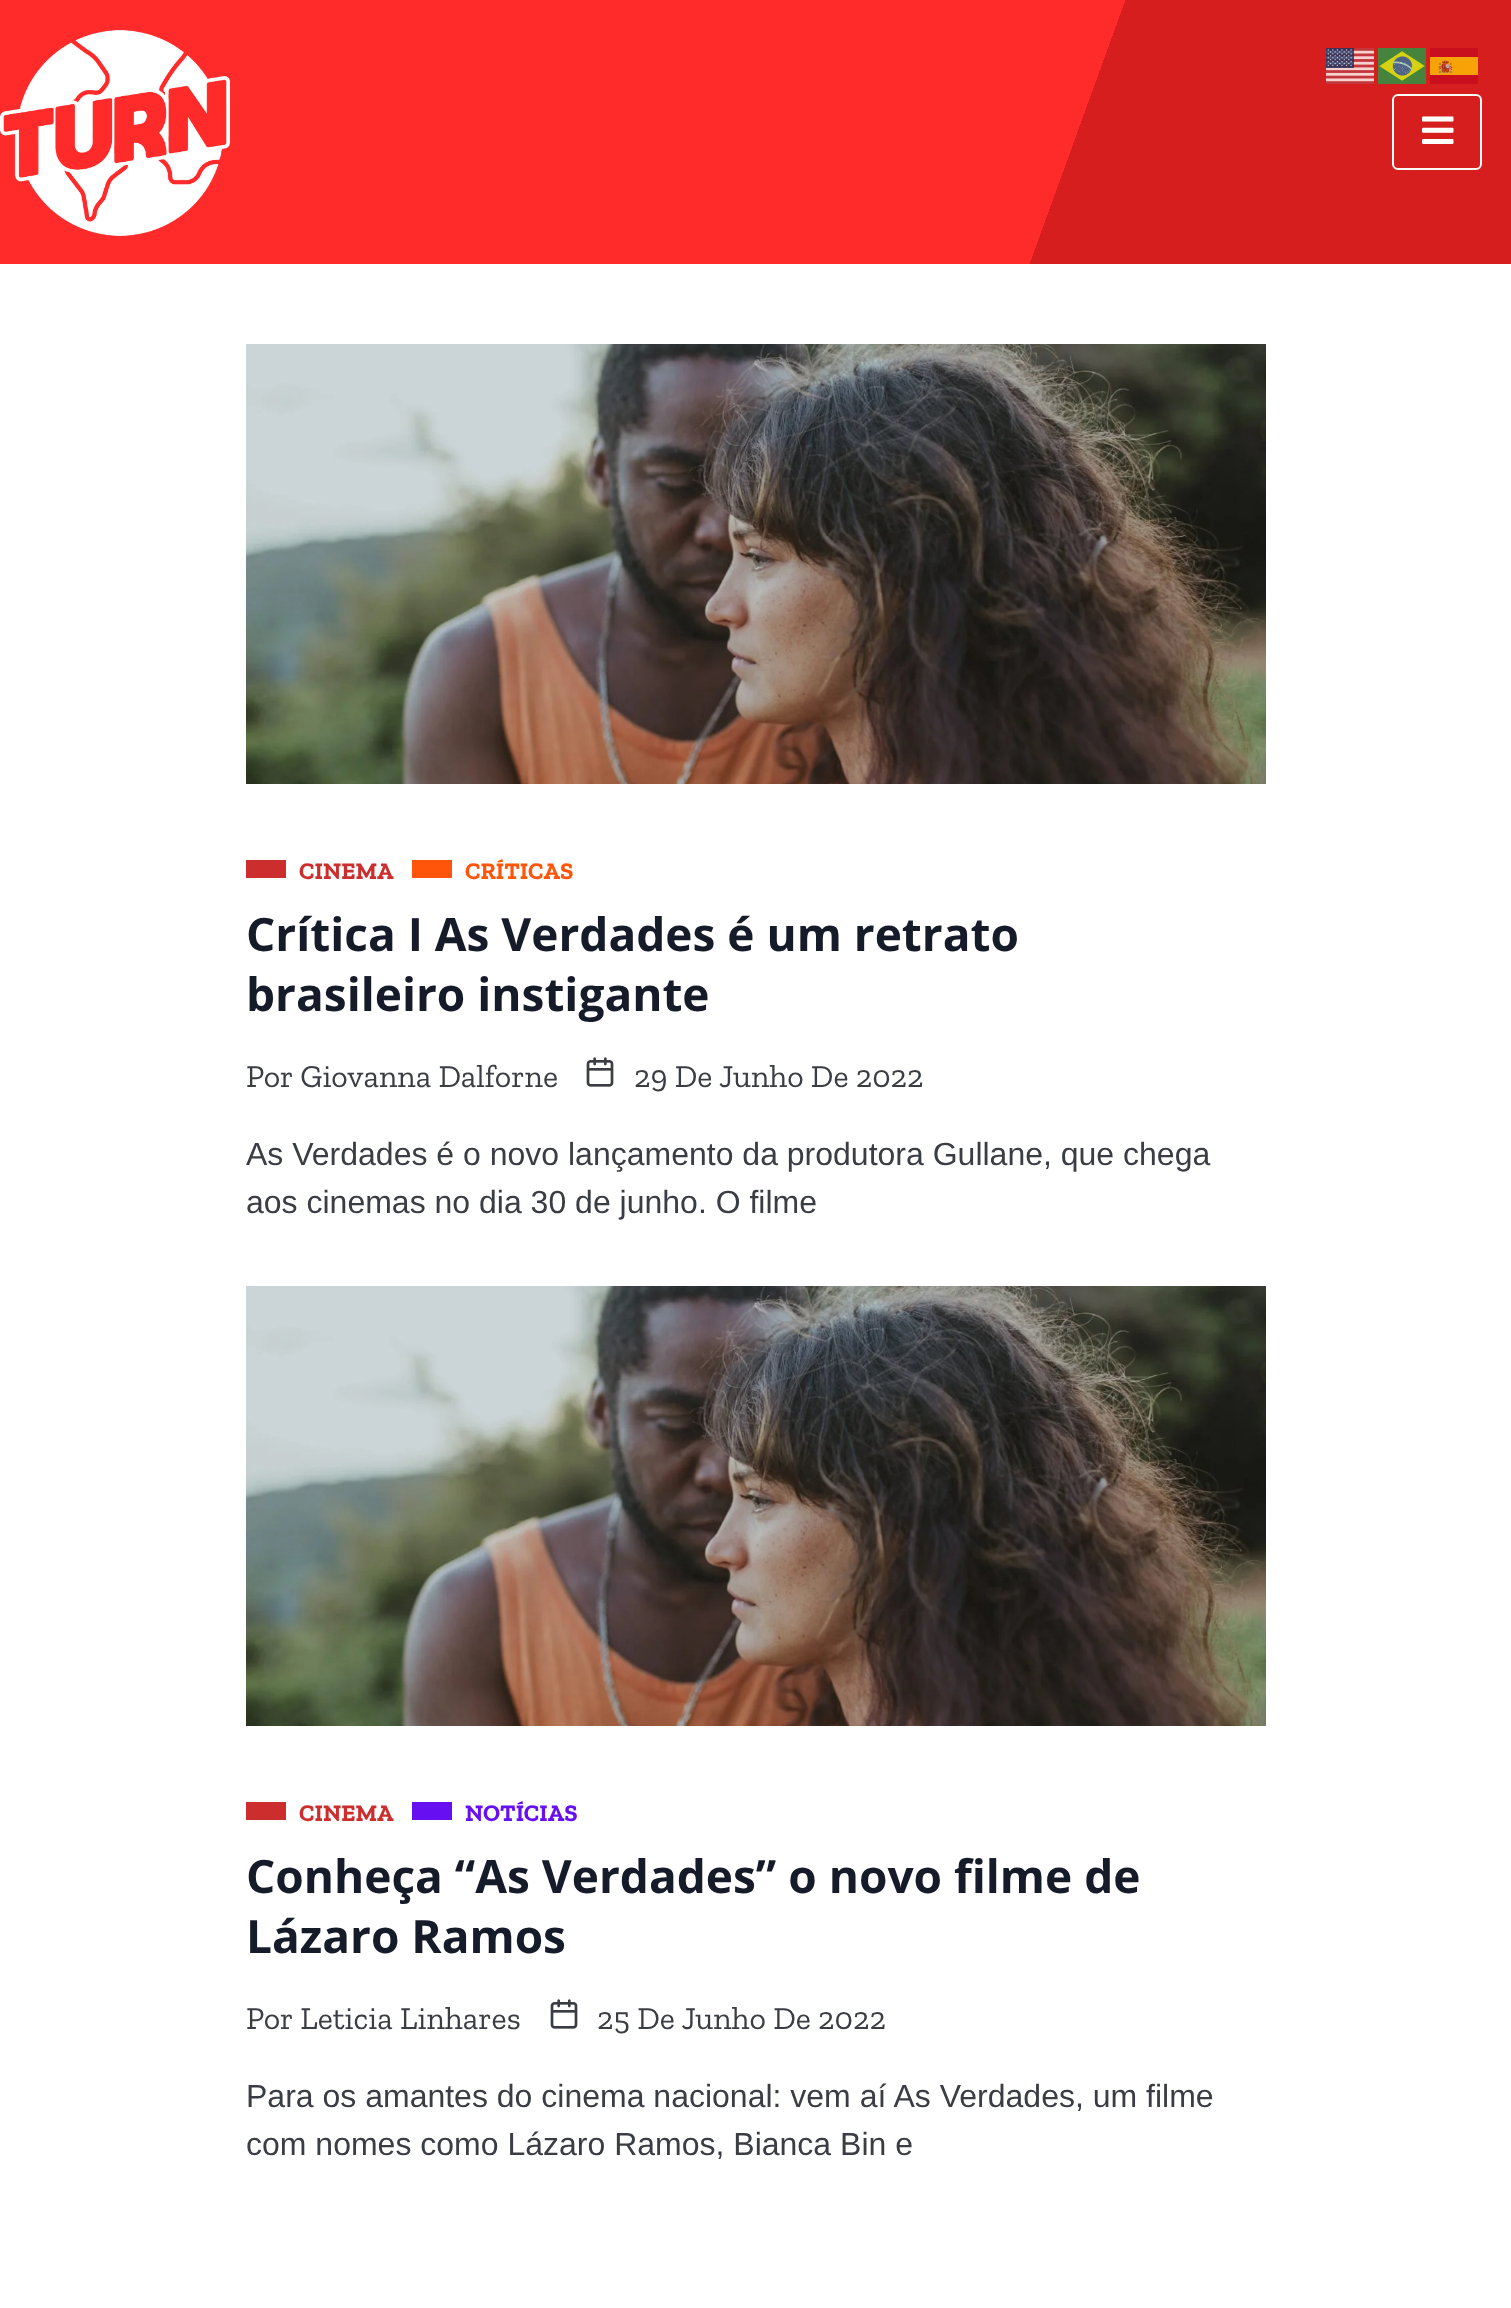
<!DOCTYPE html>
<meta charset="utf-8">
<style>body { margin: 0 } canvas { display: block }</style>
<canvas id="canvas" width="1511" height="2308"></canvas>
<img id="img1" src="img_01.png" hidden>
<img id="img2" src="img_02.png" hidden>
<img id="img3" src="img_03.png" hidden>
<img id="img4" src="img_04.png" hidden>
<img id="img5" src="img_05.png" hidden>
<img id="img6" src="img_06.png" hidden>
<img id="img7" src="img_07.png" hidden>
<script>
window.onload = function () {
	const canvas = document.getElementById("canvas");
	const ctx = canvas.getContext("2d");
	ctx.miterLimit = 4;
	ctx.fontKerning = "normal";
	function txt(s, x, y) {
		ctx.fillText(s, x, y);
	}
	function fill(x, y, w, h) {
		ctx.fillRect(x, y, w, h);
	}
	function img(id, x, y, w, h) {
		ctx.drawImage(document.getElementById(id), x, y, w, h);
	}
	let gradient;

	ctx.fillStyle = "#FFFFFF";
	fill(0, 0, 1511, 2308);
	gradient = ctx.createLinearGradient(46, -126, 1466, 390);
	gradient.addColorStop(0.7, "#FF2A2A");
	gradient.addColorStop(0.7, "#D71E1E");
	ctx.fillStyle = gradient;
	fill(0, 0, 1511, 264);
	img("img1", 0, 30, 230, 206);
	ctx.beginPath();
	ctx.roundRect(1393, 95, 88, 74, 5);
	ctx.strokeStyle = "#FFFFFF";
	ctx.lineWidth = 2;
	ctx.stroke();
	img("img2", 1422, 116, 32, 28);
	img("img3", 1326, 48, 48, 36);
	img("img4", 1378, 48, 48, 36);
	img("img5", 1430, 48, 48, 36);
	img("img6", 246, 344, 1020, 440);
	ctx.fillStyle = "#CC2E2E";
	fill(246, 860, 40, 18);
	ctx.fillStyle = "#FF550A";
	fill(412, 860, 40, 18);
	img("img7", 586, 1057, 28, 30);
	img("img6", 246, 1286, 1020, 440);
	ctx.fillStyle = "#CC2E2E";
	fill(246, 1802, 40, 18);
	ctx.fillStyle = "#6610F2";
	fill(412, 1802, 40, 18);
	img("img7", 550, 1999, 28, 30);
	ctx.font = "bold 24px Zilla Slab";
	ctx.fillStyle = "#CC2E2E";
	txt("CINEMA", 299, 879);
	ctx.fillStyle = "#FF550A";
	txt("CRÍTICAS", 465, 879);
	ctx.font = "bold 46px Open Sans";
	ctx.fillStyle = "#161B2A";
	txt("Crítica I As Verdades é um retrato", 246, 951);
	txt("brasileiro instigante", 246, 1011);
	ctx.font = "32px Zilla Slab";
	ctx.fillStyle = "#3A3D43";
	txt("Por Giovanna Dalforne", 246, 1087);
	txt("29 De Junho De 2022", 634, 1087);
	ctx.font = "32px Liberation Sans";
	txt("As Verdades é o novo lançamento da produtora Gullane, que chega", 246, 1165);
	txt("aos cinemas no dia 30 de junho. O filme", 246, 1213);
	ctx.font = "bold 24px Zilla Slab";
	ctx.fillStyle = "#CC2E2E";
	txt("CINEMA", 299, 1821);
	ctx.fillStyle = "#6610F2";
	txt("NOTÍCIAS", 465, 1821);
	ctx.font = "bold 46px Open Sans";
	ctx.fillStyle = "#161B2A";
	txt("Conheça “As Verdades” o novo filme de", 246, 1893);
	txt("Lázaro Ramos", 246, 1953);
	ctx.font = "32px Zilla Slab";
	ctx.fillStyle = "#3A3D43";
	txt("Por Leticia Linhares", 246, 2029);
	txt("25 De Junho De 2022", 597, 2029);
	ctx.font = "32px Liberation Sans";
	txt("Para os amantes do cinema nacional: vem aí As Verdades, um filme", 246, 2107);
	txt("com nomes como Lázaro Ramos, Bianca Bin e", 246, 2155);
};
</script>
